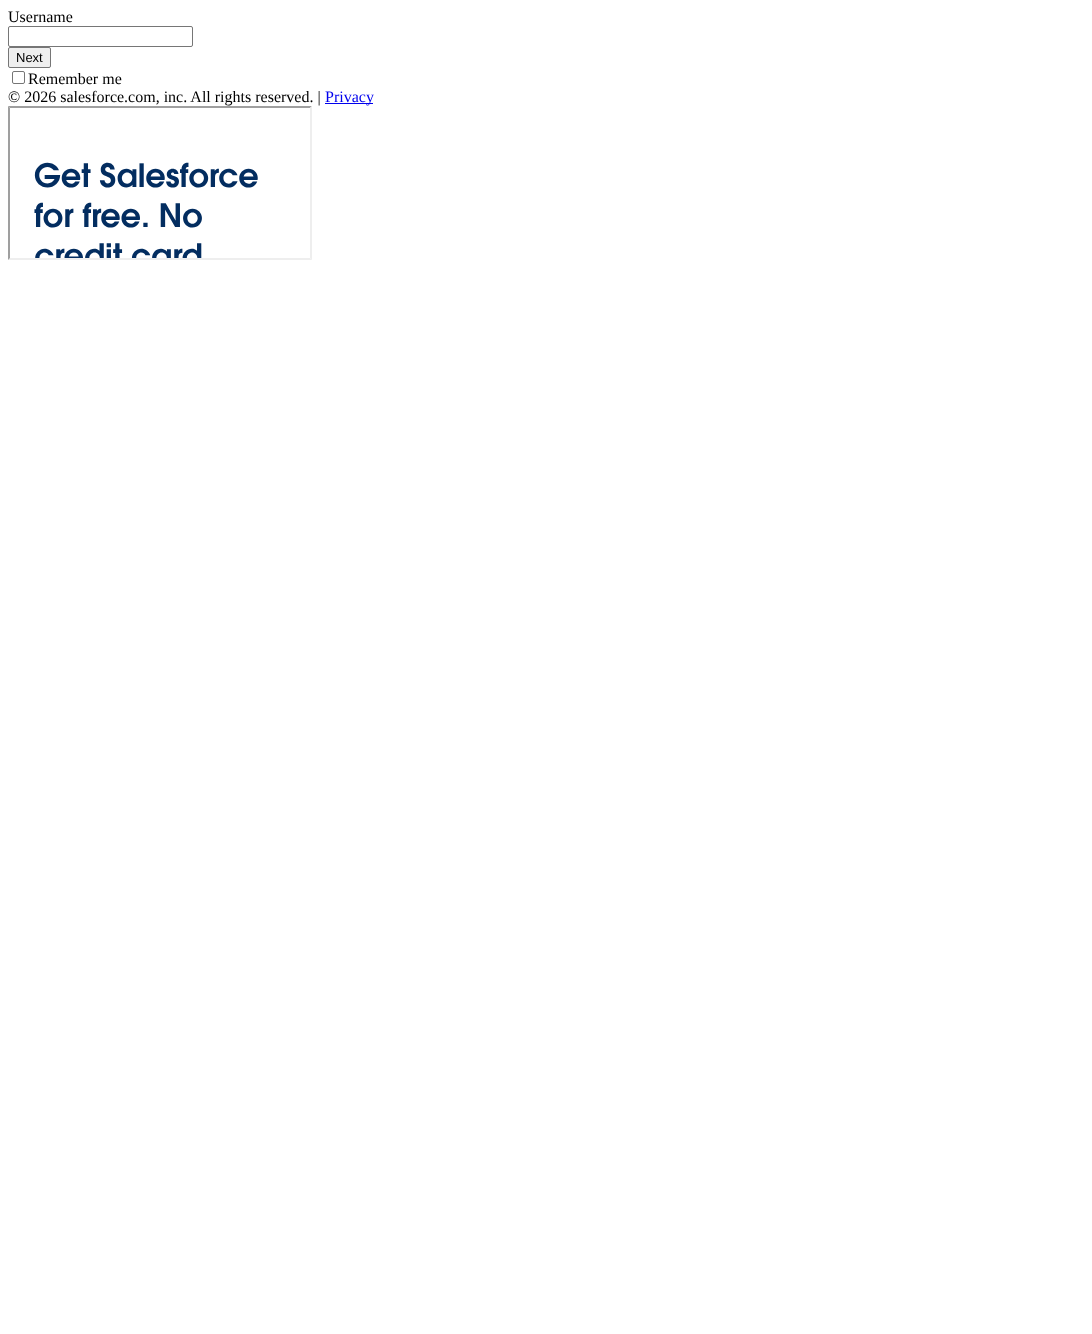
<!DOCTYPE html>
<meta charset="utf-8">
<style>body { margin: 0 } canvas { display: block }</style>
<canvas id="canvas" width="1092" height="1334"></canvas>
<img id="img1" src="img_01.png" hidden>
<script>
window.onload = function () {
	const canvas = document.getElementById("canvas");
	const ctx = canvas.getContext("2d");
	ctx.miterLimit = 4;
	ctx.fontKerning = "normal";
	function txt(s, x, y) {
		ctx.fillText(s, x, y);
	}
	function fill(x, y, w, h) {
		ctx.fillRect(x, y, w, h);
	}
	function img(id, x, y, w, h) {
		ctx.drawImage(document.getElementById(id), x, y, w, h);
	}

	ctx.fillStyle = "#FFFFFF";
	fill(0, 0, 1092, 1334);
	ctx.beginPath();
	ctx.roundRect(8.5, 26.5, 184, 20, 1.5);
	ctx.strokeStyle = "#767676";
	ctx.stroke();
	ctx.fillStyle = "#EFEFEF";
	ctx.beginPath();
	ctx.roundRect(8.5, 47.5, 42, 20, 1.5);
	ctx.fill();
	ctx.stroke();
	ctx.beginPath();
	ctx.roundRect(12.5, 71.5, 12, 12, 1.5);
	ctx.stroke();
	ctx.fillStyle = "#0000EE";
	fill(325, 103, 48, 1);
	ctx.fillStyle = "#9F9F9F";
	ctx.beginPath();
	ctx.moveTo(8, 106);
	ctx.lineTo(312, 106);
	ctx.lineTo(310, 108);
	ctx.lineTo(10, 108);
	ctx.closePath();
	ctx.fill();
	ctx.fillStyle = "#EEEEEE";
	ctx.beginPath();
	ctx.moveTo(312, 106);
	ctx.lineTo(312, 260);
	ctx.lineTo(310, 258);
	ctx.lineTo(310, 108);
	ctx.closePath();
	ctx.fill();
	ctx.beginPath();
	ctx.moveTo(312, 260);
	ctx.lineTo(8, 260);
	ctx.lineTo(10, 258);
	ctx.lineTo(310, 258);
	ctx.closePath();
	ctx.fill();
	ctx.fillStyle = "#9F9F9F";
	ctx.beginPath();
	ctx.moveTo(8, 260);
	ctx.lineTo(8, 106);
	ctx.lineTo(10, 108);
	ctx.lineTo(10, 258);
	ctx.closePath();
	ctx.fill();
	img("img1", 34, 162, 224, 96);
	ctx.font = "16px Liberation Serif";
	ctx.fillStyle = "#000000";
	txt("Username", 8, 22);
	ctx.font = "13px Liberation Sans";
	txt("Next", 16, 62);
	ctx.font = "16px Liberation Serif";
	txt("Remember me", 28, 84);
	txt("© 2026 salesforce.com, inc. All rights reserved. |", 8, 102);
	ctx.fillStyle = "#0000EE";
	txt("Privacy", 325, 102);
};
</script>
